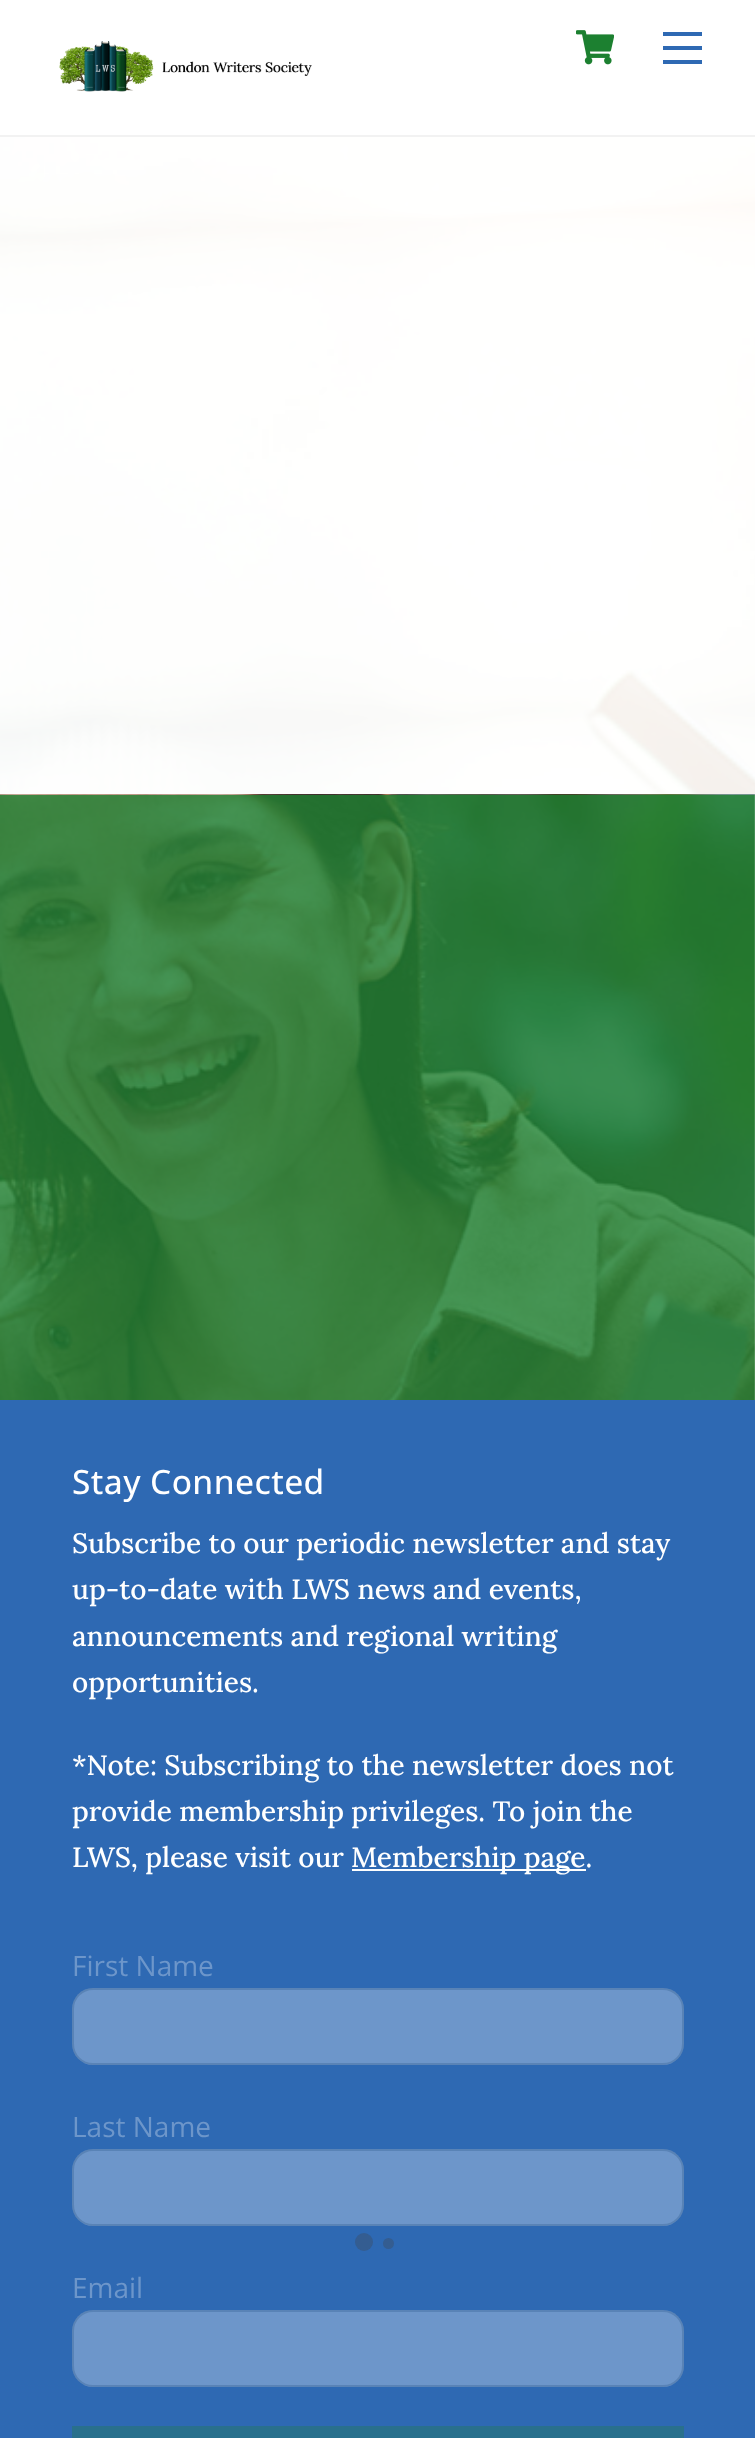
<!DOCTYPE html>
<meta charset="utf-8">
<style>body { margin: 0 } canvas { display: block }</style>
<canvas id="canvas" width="755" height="2438"></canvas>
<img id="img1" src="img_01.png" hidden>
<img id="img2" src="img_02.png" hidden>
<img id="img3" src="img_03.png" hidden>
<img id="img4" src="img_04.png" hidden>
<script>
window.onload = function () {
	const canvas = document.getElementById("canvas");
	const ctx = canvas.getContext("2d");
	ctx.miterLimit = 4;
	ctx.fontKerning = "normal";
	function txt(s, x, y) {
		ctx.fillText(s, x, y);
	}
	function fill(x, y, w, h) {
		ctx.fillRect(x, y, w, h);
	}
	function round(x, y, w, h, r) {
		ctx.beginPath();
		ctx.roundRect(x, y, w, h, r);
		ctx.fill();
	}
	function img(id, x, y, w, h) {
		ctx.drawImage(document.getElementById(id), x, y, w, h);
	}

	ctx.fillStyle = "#FFFFFF";
	fill(0, 0, 755, 2438);
	ctx.fillStyle = "#F2F2F2";
	fill(0, 135, 755, 2);
	img("img1", 59, 41, 253, 51);
	img("img2", 576, 30, 38, 35);
	ctx.fillStyle = "#2E69B3";
	fill(663, 60, 39, 4);
	fill(663, 32, 39, 4);
	fill(663, 46, 39, 4);
	img("img3", 0, 137, 755, 658);
	img("img4", 0, 794, 755, 606);
	fill(0, 1400, 755, 1038);
	ctx.fillStyle = "#FFFFFF";
	fill(352, 1869, 234, 2);
	ctx.fillStyle = "#6D96CA";
	round(72, 1988, 612, 77, 21);
	ctx.beginPath();
	ctx.roundRect(73, 1989, 610, 75, 20);
	ctx.strokeStyle = "rgba(32, 74, 125, 0.25)";
	ctx.lineWidth = 2;
	ctx.stroke();
	round(72, 2149, 612, 77, 21);
	ctx.beginPath();
	ctx.roundRect(73, 2150, 610, 75, 20);
	ctx.stroke();
	round(72, 2310, 612, 77, 21);
	ctx.beginPath();
	ctx.roundRect(73, 2311, 610, 75, 20);
	ctx.stroke();
	ctx.fillStyle = "#29708C";
	fill(72, 2426, 612, 12);
	ctx.fillStyle = "#345D91";
	ctx.beginPath();
	ctx.arc(364, 2242, 9, 0, Math.PI * 2);
	ctx.fill();
	ctx.beginPath();
	ctx.arc(388.5, 2243.5, 5.5, 0, Math.PI * 2);
	ctx.fill();
	ctx.letterSpacing = "0.4px";
	ctx.font = "500 33.5px Open Sans";
	ctx.fillStyle = "#FFFFFF";
	txt("Stay Connected", 72, 1494);
	ctx.letterSpacing = "0px";
	ctx.font = "500 28px Lora";
	txt("Subscribe to our periodic newsletter and stay", 72, 1553);
	txt("up-to-date with LWS news and events,", 72, 1599);
	txt("announcements and regional writing", 72, 1646);
	txt("opportunities.", 72, 1692);
	txt("*Note: Subscribing to the newsletter does not", 72, 1775);
	txt("provide membership privileges. To join the", 72, 1821);
	txt("LWS, please visit our", 72, 1867);
	txt("Membership page.", 351, 1867);
	ctx.font = "28px Open Sans";
	ctx.fillStyle = "#6D96CA";
	txt("First Name", 72, 1976);
	txt("Last Name", 72, 2137);
	txt("Email", 72, 2298);
};
</script>
